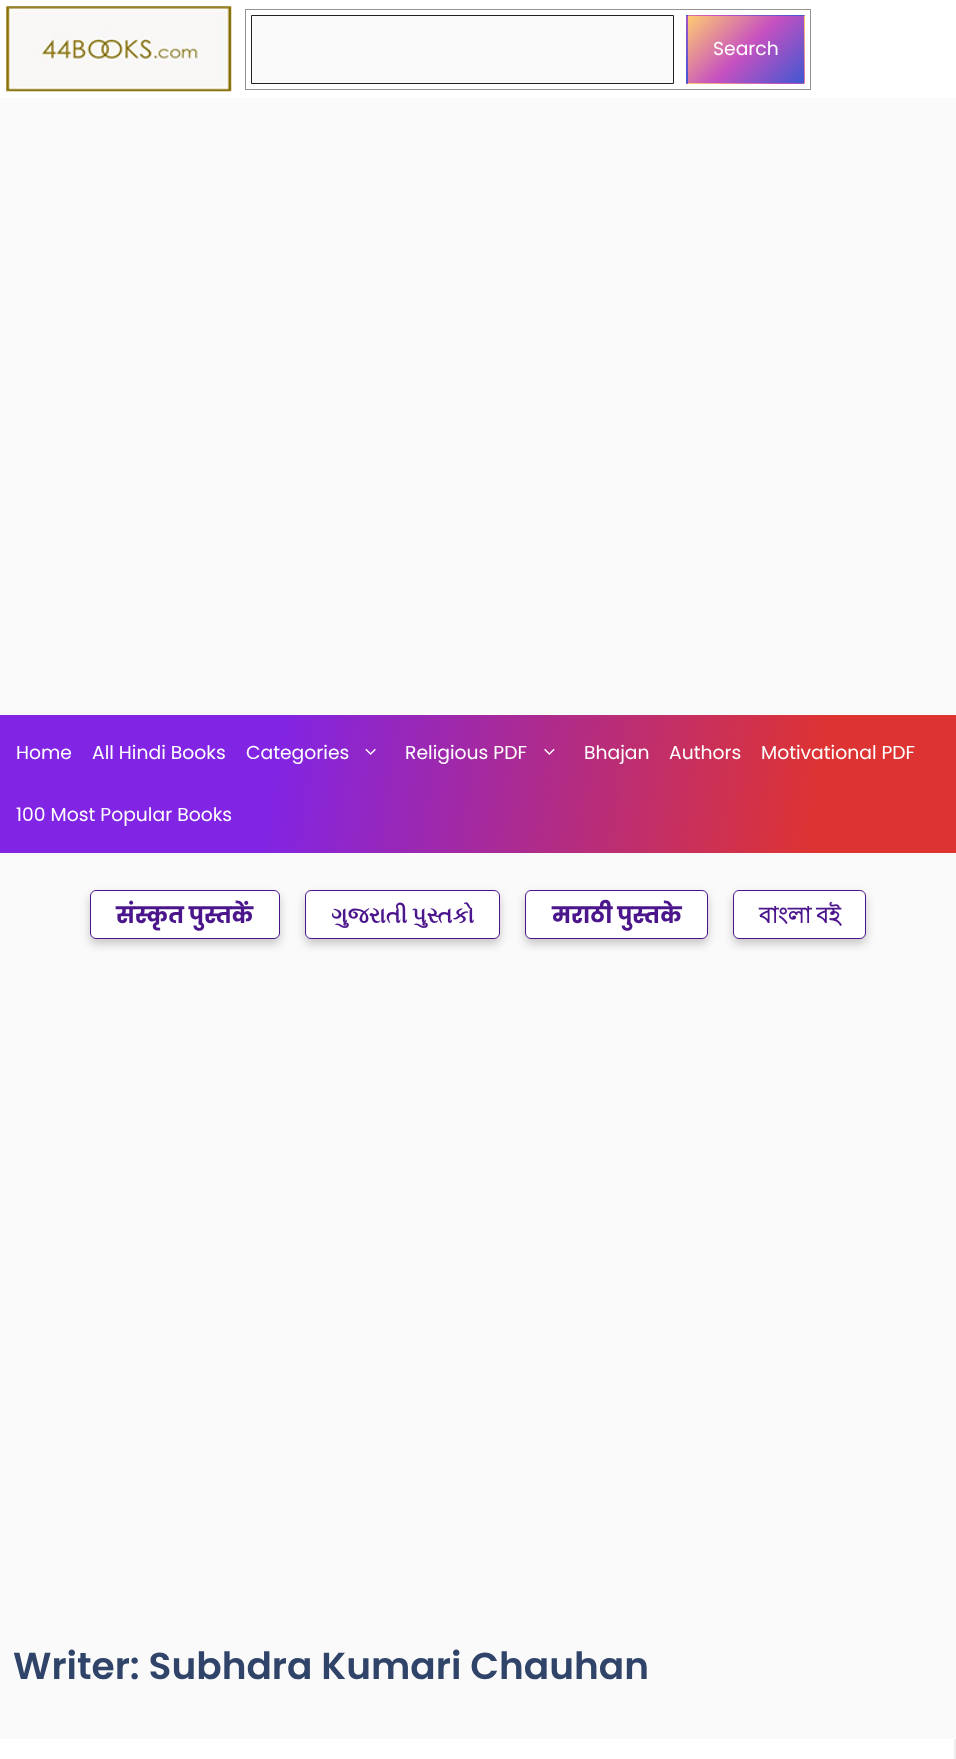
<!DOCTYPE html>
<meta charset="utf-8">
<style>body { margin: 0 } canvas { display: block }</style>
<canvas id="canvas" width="956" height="1759"></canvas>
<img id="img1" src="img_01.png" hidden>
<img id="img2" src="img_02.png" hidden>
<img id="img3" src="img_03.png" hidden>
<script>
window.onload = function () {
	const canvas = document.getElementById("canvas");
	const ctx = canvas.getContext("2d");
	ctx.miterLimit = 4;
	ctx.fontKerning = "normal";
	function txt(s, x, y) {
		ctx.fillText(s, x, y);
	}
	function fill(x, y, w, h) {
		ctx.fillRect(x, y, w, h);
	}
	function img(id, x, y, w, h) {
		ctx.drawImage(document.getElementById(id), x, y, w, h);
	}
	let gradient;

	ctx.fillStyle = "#FAFAFA";
	fill(0, 0, 956, 1759);
	ctx.fillStyle = "#FFFFFF";
	fill(0, 0, 956, 98);
	img("img1", 6, 6, 226, 86);
	ctx.strokeStyle = "#949494";
	ctx.strokeRect(245.5, 9.5, 565, 80);
	ctx.fillStyle = "#FAFAFA";
	ctx.beginPath();
	ctx.rect(251.5, 15.5, 422, 68);
	ctx.fill();
	ctx.strokeStyle = "#212121";
	ctx.stroke();
	gradient = ctx.createLinearGradient(584, -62, 675, 29);
	gradient.addColorStop(0, "#FFCB70");
	gradient.addColorStop(0.5, "#C751C0");
	gradient.addColorStop(1, "#4158D0");
	ctx.fillStyle = gradient;
	fill(686, 15, 2, 1);
	gradient = ctx.createLinearGradient(700, -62, 791, 29);
	gradient.addColorStop(0, "#FFCB70");
	gradient.addColorStop(0.5, "#C751C0");
	gradient.addColorStop(1, "#4158D0");
	ctx.fillStyle = gradient;
	fill(688, 15, 116, 1);
	gradient = ctx.createLinearGradient(816, -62, 908, 29);
	gradient.addColorStop(0, "#FFCB70");
	gradient.addColorStop(0.5, "#C751C0");
	gradient.addColorStop(1, "#4158D0");
	ctx.fillStyle = gradient;
	fill(804, 15, 1, 1);
	gradient = ctx.createLinearGradient(584, 3.8, 675, 95);
	gradient.addColorStop(0, "#FFCB70");
	gradient.addColorStop(0.5, "#C751C0");
	gradient.addColorStop(1, "#4158D0");
	ctx.fillStyle = gradient;
	fill(686, 16, 2, 67);
	gradient = ctx.createLinearGradient(700, 3.8, 791, 95);
	gradient.addColorStop(0, "#FFCB70");
	gradient.addColorStop(0.5, "#C751C0");
	gradient.addColorStop(1, "#4158D0");
	ctx.fillStyle = gradient;
	fill(688, 16, 116, 67);
	gradient = ctx.createLinearGradient(816, 3.8, 908, 95);
	gradient.addColorStop(0, "#FFCB70");
	gradient.addColorStop(0.5, "#C751C0");
	gradient.addColorStop(1, "#4158D0");
	ctx.fillStyle = gradient;
	fill(804, 16, 1, 67);
	gradient = ctx.createLinearGradient(584, 70, 675, 161);
	gradient.addColorStop(0, "#FFCB70");
	gradient.addColorStop(0.5, "#C751C0");
	gradient.addColorStop(1, "#4158D0");
	ctx.fillStyle = gradient;
	fill(686, 83, 2, 1);
	gradient = ctx.createLinearGradient(700, 70, 791, 161);
	gradient.addColorStop(0, "#FFCB70");
	gradient.addColorStop(0.5, "#C751C0");
	gradient.addColorStop(1, "#4158D0");
	ctx.fillStyle = gradient;
	fill(688, 83, 116, 1);
	gradient = ctx.createLinearGradient(816, 70, 908, 161);
	gradient.addColorStop(0, "#FFCB70");
	gradient.addColorStop(0.5, "#C751C0");
	gradient.addColorStop(1, "#4158D0");
	ctx.fillStyle = gradient;
	fill(804, 83, 1, 1);
	gradient = ctx.createLinearGradient(956, 851, -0.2, 717);
	gradient.addColorStop(0.15, "#DD3333");
	gradient.addColorStop(0.71, "#8224E3");
	ctx.fillStyle = gradient;
	fill(0, 715, 956, 138);
	img("img2", 365, 748, 11, 7);
	img("img3", 544, 748, 11, 7);
	ctx.fillStyle = "rgba(0, 0, 0, 0.2)";
	ctx.filter = "blur(5px)";
	ctx.beginPath();
	ctx.roundRect(90, 895, 190, 49, 6);
	ctx.fill();
	ctx.filter = "none";
	ctx.fillStyle = "#FFFFFF";
	ctx.beginPath();
	ctx.roundRect(90.5, 890.5, 189, 48, 5.5);
	ctx.fill();
	ctx.strokeStyle = "#4B158C";
	ctx.stroke();
	ctx.fillStyle = "rgba(0, 0, 0, 0.2)";
	ctx.filter = "blur(5px)";
	ctx.beginPath();
	ctx.roundRect(305, 895, 195, 49, 6);
	ctx.fill();
	ctx.filter = "none";
	ctx.fillStyle = "#FFFFFF";
	ctx.beginPath();
	ctx.roundRect(305.5, 890.5, 194, 48, 5.5);
	ctx.fill();
	ctx.stroke();
	ctx.fillStyle = "rgba(0, 0, 0, 0.2)";
	ctx.filter = "blur(5px)";
	ctx.beginPath();
	ctx.roundRect(525, 895, 183, 49, 6);
	ctx.fill();
	ctx.filter = "none";
	ctx.fillStyle = "#FFFFFF";
	ctx.beginPath();
	ctx.roundRect(525.5, 890.5, 182, 48, 5.5);
	ctx.fill();
	ctx.stroke();
	ctx.fillStyle = "rgba(0, 0, 0, 0.2)";
	ctx.filter = "blur(5px)";
	ctx.beginPath();
	ctx.roundRect(733, 895, 133, 49, 6);
	ctx.fill();
	ctx.filter = "none";
	ctx.fillStyle = "#FFFFFF";
	ctx.beginPath();
	ctx.roundRect(733.5, 890.5, 132, 48, 5.5);
	ctx.fill();
	ctx.stroke();
	fill(0, 1739, 954, 20);
	ctx.fillStyle = "#EDEDED";
	ctx.beginPath();
	ctx.moveTo(956, 1739);
	ctx.lineTo(956, 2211);
	ctx.lineTo(954, 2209);
	ctx.lineTo(954, 1739);
	ctx.closePath();
	ctx.fill();
	ctx.font = "18.75px Poppins";
	ctx.fillStyle = "#FFFFFF";
	txt("Search", 713, 55);
	txt("Home", 16, 759);
	txt("All Hindi Books", 92, 759);
	txt("Categories", 246, 759);
	txt("Religious PDF", 405, 759);
	txt("Bhajan", 584, 759);
	txt("Authors", 669, 759);
	txt("Motivational PDF", 761, 759);
	txt("100 Most Popular Books", 16, 821);
	ctx.font = "bold 22.5px Poppins";
	ctx.fillStyle = "#4B158C";
	txt("संस्कृत पुस्तकें", 116, 923);
	ctx.wordSpacing = "-1px";
	ctx.font = "bold 22.5px FreeSerif";
	txt("ગુજરાતી પુસ્તકો", 331, 923);
	ctx.wordSpacing = "0px";
	ctx.font = "bold 22.5px Poppins";
	txt("मराठी पुस्तके", 552, 923);
	ctx.wordSpacing = "-1px";
	ctx.font = "bold 22.5px Lohit Bengali";
	txt("বাংলা বই", 759, 923);
	ctx.wordSpacing = "0px";
	ctx.font = "600 37.5px Poppins";
	ctx.fillStyle = "#2F4468";
	txt("Writer: Subhdra Kumari Chauhan", 13, 1679);
};
</script>
